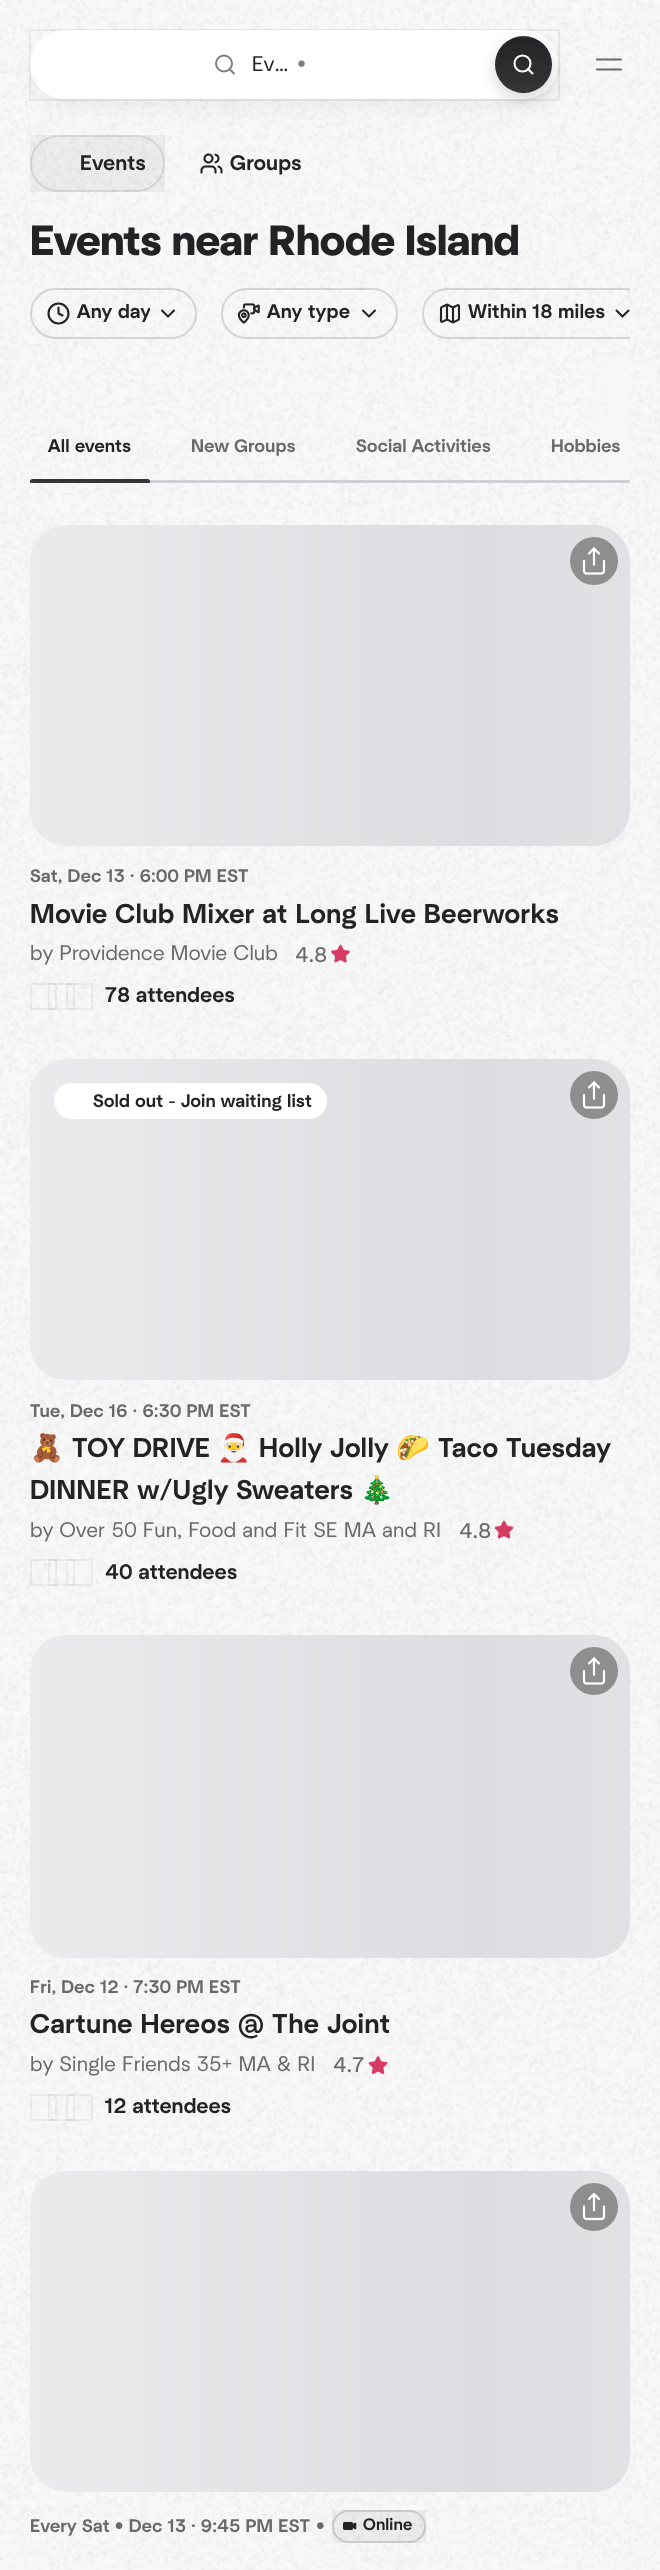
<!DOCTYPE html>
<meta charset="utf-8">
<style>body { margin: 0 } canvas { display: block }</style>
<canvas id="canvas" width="660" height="2570"></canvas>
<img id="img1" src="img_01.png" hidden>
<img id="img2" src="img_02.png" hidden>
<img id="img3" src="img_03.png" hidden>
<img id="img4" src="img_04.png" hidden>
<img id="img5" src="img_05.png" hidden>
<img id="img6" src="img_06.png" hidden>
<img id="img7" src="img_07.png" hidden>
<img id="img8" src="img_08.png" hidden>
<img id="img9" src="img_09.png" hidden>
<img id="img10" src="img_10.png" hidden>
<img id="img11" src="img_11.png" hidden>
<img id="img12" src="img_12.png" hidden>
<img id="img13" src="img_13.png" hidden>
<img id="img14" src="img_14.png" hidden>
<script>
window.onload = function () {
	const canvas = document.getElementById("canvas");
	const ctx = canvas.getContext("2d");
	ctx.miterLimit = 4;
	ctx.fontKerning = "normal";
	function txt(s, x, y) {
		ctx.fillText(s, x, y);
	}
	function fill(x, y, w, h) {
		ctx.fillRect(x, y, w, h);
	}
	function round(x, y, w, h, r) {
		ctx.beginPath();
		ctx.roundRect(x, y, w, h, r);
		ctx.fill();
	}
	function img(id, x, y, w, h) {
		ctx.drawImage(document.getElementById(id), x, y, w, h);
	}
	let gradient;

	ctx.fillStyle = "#FFFFFF";
	fill(0, 0, 660, 2570);
	img("img1", 0, 129, 660, 2441);
	img("img2", 0, 0, 660, 129);
	fill(0, 0, 2, 1);
	ctx.strokeStyle = "rgba(0, 0, 16, 0.06)";
	ctx.lineWidth = 2;
	ctx.strokeRect(30, 30, 529, 70);
	img("img3", 30, 129, 600, 234);
	ctx.fillStyle = "rgba(18, 18, 21, 0.05)";
	fill(30, 135, 135, 57);
	ctx.beginPath();
	ctx.roundRect(31, 136, 133, 55, 27.5);
	ctx.strokeStyle = "rgba(18, 18, 21, 0.1)";
	ctx.stroke();
	ctx.fillStyle = "rgba(0, 0, 16, 0.06)";
	ctx.filter = "blur(12px)";
	ctx.beginPath();
	ctx.roundRect(36, 48, 516, 57, 28.5);
	ctx.fill();
	ctx.filter = "none";
	ctx.fillStyle = "#FFFFFF";
	round(30, 30, 528, 69, 34.5);
	ctx.beginPath();
	ctx.moveTo(234, 73.5);
	ctx.lineTo(229.5, 69);
	ctx.strokeStyle = "#7D7D82";
	ctx.lineCap = "round";
	ctx.lineJoin = "round";
	ctx.stroke();
	ctx.beginPath();
	ctx.arc(224, 63.5, 8, 0, Math.PI * 2);
	ctx.stroke();
	ctx.fillStyle = "rgba(0, 0, 16, 0.16)";
	ctx.filter = "blur(7.5px)";
	ctx.beginPath();
	ctx.roundRect(495, 42, 57, 57, 28.5);
	ctx.fill();
	ctx.filter = "none";
	ctx.save();
	ctx.beginPath();
	ctx.roundRect(495, 36, 57, 57, 28.5);
	ctx.clip();
	gradient = ctx.createLinearGradient(524, -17, 524, 38);
	gradient.addColorStop(0, "#232326");
	gradient.addColorStop(1, "#353538");
	ctx.fillStyle = gradient;
	fill(513, 36, 21, 2);
	gradient = ctx.createLinearGradient(524, 37, 524, 92);
	gradient.addColorStop(0, "#232326");
	gradient.addColorStop(1, "#353538");
	ctx.fillStyle = gradient;
	fill(495, 38, 57, 54);
	gradient = ctx.createLinearGradient(524, 92, 524, 146);
	gradient.addColorStop(0, "#232326");
	gradient.addColorStop(1, "#353538");
	ctx.fillStyle = gradient;
	fill(516, 92, 15, 1);
	ctx.restore();
	ctx.beginPath();
	ctx.moveTo(532.5, 73.5);
	ctx.lineTo(528, 69);
	ctx.strokeStyle = "#FFFFFF";
	ctx.lineWidth = 2.1;
	ctx.stroke();
	ctx.beginPath();
	ctx.arc(522.5, 63.5, 8, 0, Math.PI * 2);
	ctx.stroke();
	ctx.beginPath();
	ctx.moveTo(597, 69.5);
	ctx.lineTo(621, 69.5);
	ctx.moveTo(597, 59.5);
	ctx.lineTo(621, 59.5);
	ctx.strokeStyle = "#69696C";
	ctx.lineWidth = 2.2;
	ctx.stroke();
	img("img4", 200, 153, 23, 21);
	ctx.beginPath();
	ctx.roundRect(31, 289, 165, 49, 24.5);
	ctx.strokeStyle = "rgba(18, 18, 21, 0.15)";
	ctx.lineWidth = 2;
	ctx.lineJoin = "miter";
	ctx.stroke();
	ctx.beginPath();
	ctx.arc(58.5, 313.5, 10, 0, Math.PI * 2);
	ctx.strokeStyle = "#232326";
	ctx.lineWidth = 2.1;
	ctx.stroke();
	ctx.beginPath();
	ctx.moveTo(58.5, 307.5);
	ctx.lineTo(58.5, 313.5);
	ctx.lineTo(62.5, 315.5);
	ctx.lineJoin = "round";
	ctx.stroke();
	ctx.beginPath();
	ctx.moveTo(162, 310.5);
	ctx.lineTo(168, 316.5);
	ctx.lineTo(174, 310.5);
	ctx.stroke();
	ctx.beginPath();
	ctx.roundRect(222, 289, 175, 49, 24.5);
	ctx.strokeStyle = "rgba(18, 18, 21, 0.15)";
	ctx.lineWidth = 2;
	ctx.lineJoin = "miter";
	ctx.stroke();
	img("img5", 237, 303, 23, 21);
	ctx.beginPath();
	ctx.moveTo(363, 310.5);
	ctx.lineTo(369, 316.5);
	ctx.lineTo(375, 310.5);
	ctx.strokeStyle = "#232326";
	ctx.lineWidth = 2.1;
	ctx.lineJoin = "round";
	ctx.stroke();
	ctx.save();
	ctx.beginPath();
	ctx.rect(30, 288, 600, 51);
	ctx.clip();
	ctx.beginPath();
	ctx.roundRect(423, 289, 227, 49, 24.5);
	ctx.strokeStyle = "rgba(18, 18, 21, 0.15)";
	ctx.lineWidth = 2;
	ctx.lineJoin = "miter";
	ctx.stroke();
	ctx.restore();
	img("img6", 439, 303, 22, 21);
	ctx.beginPath();
	ctx.moveTo(616.5, 310.5);
	ctx.lineTo(622.5, 316.5);
	ctx.lineTo(628.5, 310.5);
	ctx.stroke();
	ctx.fillStyle = "#F7F7F8";
	fill(572, 363, 58, 117);
	img("img7", 30, 363, 579, 117);
	ctx.fillStyle = "#D0D0D4";
	fill(30, 480, 600, 3);
	ctx.save();
	ctx.beginPath();
	ctx.rect(30, 363, 600, 120);
	ctx.clip();
	ctx.fillStyle = "#353538";
	round(30, 479, 120, 5, 2.5);
	ctx.restore();
	img("img8", 30, 495, 600, 30);
	gradient = ctx.createLinearGradient(30, 686, 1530, 685);
	gradient.addColorStop(0, "#EBEBEE");
	gradient.addColorStop(0.3, "#DDDDE1");
	gradient.addColorStop(0.6, "#EBEBEE");
	ctx.fillStyle = gradient;
	round(30, 525, 600, 321, 36);
	ctx.fillStyle = "#8E8E91";
	ctx.beginPath();
	ctx.arc(594, 561, 24, 0, Math.PI * 2);
	ctx.fill();
	img("img9", 582, 547, 24, 28);
	img("img10", 331, 944, 19, 19);
	ctx.strokeStyle = "rgba(18, 18, 21, 0.05)";
	ctx.lineWidth = 2;
	ctx.lineJoin = "miter";
	ctx.strokeRect(31, 984, 25, 25);
	ctx.strokeRect(49, 984, 25, 25);
	ctx.strokeRect(67, 984, 25, 25);
	gradient = ctx.createLinearGradient(30, 1220, 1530, 1220);
	gradient.addColorStop(0, "#EBEBEE");
	gradient.addColorStop(0.3, "#DDDDE1");
	gradient.addColorStop(0.6, "#EBEBEE");
	ctx.fillStyle = gradient;
	round(30, 1059, 600, 321, 36);
	ctx.fillStyle = "#FFFFFF";
	round(54, 1083, 273, 36, 18);
	ctx.fillStyle = "#8E8E91";
	ctx.beginPath();
	ctx.arc(594, 1095, 24, 0, Math.PI * 2);
	ctx.fill();
	img("img9", 582, 1081, 24, 28);
	img("img11", 494, 1520, 20, 19);
	ctx.strokeRect(31, 1560, 25, 25);
	ctx.strokeRect(49, 1560, 25, 25);
	ctx.strokeRect(67, 1560, 25, 25);
	gradient = ctx.createLinearGradient(30, 1796, 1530, 1796);
	gradient.addColorStop(0, "#EBEBEE");
	gradient.addColorStop(0.3, "#DDDDE1");
	gradient.addColorStop(0.6, "#EBEBEE");
	ctx.fillStyle = gradient;
	round(30, 1635, 600, 323, 36);
	ctx.fillStyle = "#8E8E91";
	ctx.beginPath();
	ctx.arc(594, 1671, 24, 0, Math.PI * 2);
	ctx.fill();
	img("img9", 582, 1657, 24, 28);
	img("img12", 368, 2056, 20, 18);
	ctx.strokeRect(31, 2095, 25, 25);
	ctx.strokeRect(49, 2095, 25, 25);
	ctx.strokeRect(67, 2095, 25, 25);
	gradient = ctx.createLinearGradient(30, 2331, 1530, 2331);
	gradient.addColorStop(0, "#EBEBEE");
	gradient.addColorStop(0.3, "#DDDDE1");
	gradient.addColorStop(0.6, "#EBEBEE");
	ctx.fillStyle = gradient;
	round(30, 2171, 600, 321, 36);
	ctx.fillStyle = "#8E8E91";
	ctx.beginPath();
	ctx.arc(594, 2207, 24, 0, Math.PI * 2);
	ctx.fill();
	img("img13", 582, 2192, 24, 29);
	ctx.fillStyle = "rgba(18, 18, 21, 0.05)";
	fill(332, 2510, 94, 33);
	ctx.beginPath();
	ctx.roundRect(333, 2511, 92, 31, 15.5);
	ctx.strokeStyle = "rgba(18, 18, 21, 0.15)";
	ctx.stroke();
	img("img14", 343, 2522, 14, 8);
	ctx.letterSpacing = "0.4px";
	ctx.font = "21px 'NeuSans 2'";
	ctx.fillStyle = "#232326";
	txt("Ev…", 252, 71);
	ctx.fillStyle = "#7D7D82";
	txt("•", 297, 71);
	ctx.font = "500 21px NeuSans";
	ctx.fillStyle = "#232326";
	txt("Events", 80, 170);
	txt("Groups", 230, 170);
	ctx.letterSpacing = "0px";
	ctx.font = "bold 42px NeuSans";
	txt("Events near Rhode Island", 30, 255);
	ctx.save();
	ctx.beginPath();
	ctx.rect(77, 299, 73, 30);
	ctx.clip();
	ctx.letterSpacing = "0.4px";
	ctx.font = "500 19.5px NeuSans";
	txt("Any day", 77, 318);
	ctx.restore();
	ctx.letterSpacing = "0.4px";
	ctx.font = "500 19.5px NeuSans";
	txt("Any type", 267, 318);
	txt("Within 18 miles", 468, 318);
	ctx.letterSpacing = "0.35px";
	ctx.font = "500 18px NeuSans";
	txt("All events", 48, 452);
	ctx.fillStyle = "#69696C";
	txt("New Groups", 191, 452);
	txt("Social Activities", 356, 452);
	txt("Hobbies", 551, 452);
	txt("Sat, Dec 13 · 6:00 PM EST", 30, 882);
	ctx.letterSpacing = "0.55px";
	ctx.font = "500 27px NeuSans";
	ctx.fillStyle = "#232326";
	txt("Movie Club Mixer at Long Live Beerworks", 30, 923);
	ctx.letterSpacing = "0.4px";
	ctx.font = "21px 'NeuSans 2'";
	ctx.fillStyle = "#69696C";
	txt("by Providence Movie Club", 30, 960);
	ctx.font = "21px NeuSans";
	txt("4.8", 295, 962);
	ctx.font = "500 21px NeuSans";
	ctx.fillStyle = "#232326";
	txt("78 attendees", 105, 1002);
	ctx.letterSpacing = "0.35px";
	ctx.font = "500 18px NeuSans";
	txt("Sold out - Join waiting list", 93, 1107);
	ctx.fillStyle = "#69696C";
	txt("Tue, Dec 16 · 6:30 PM EST", 30, 1417);
	ctx.letterSpacing = "0.55px";
	ctx.font = "bold 27px Noto Color Emoji";
	ctx.fillStyle = "#232326";
	txt("🧸", 30, 1457);
	ctx.font = "500 27px NeuSans";
	txt("TOY DRIVE", 72, 1457);
	ctx.font = "bold 27px Noto Color Emoji";
	txt("🎅", 217, 1457);
	ctx.font = "500 27px NeuSans";
	txt("Holly Jolly", 259, 1457);
	ctx.font = "bold 27px Noto Color Emoji";
	txt("🌮", 396, 1457);
	ctx.font = "500 27px NeuSans";
	txt("Taco Tuesday", 438, 1457);
	txt("DINNER w/Ugly Sweaters", 30, 1499);
	ctx.font = "bold 27px Noto Color Emoji";
	txt("🎄", 360, 1499);
	ctx.letterSpacing = "0.4px";
	ctx.font = "21px 'NeuSans 2'";
	ctx.fillStyle = "#69696C";
	txt("by Over 50 Fun, Food and Fit SE MA and RI", 30, 1537);
	ctx.font = "21px NeuSans";
	txt("4.8", 459, 1538);
	ctx.font = "500 21px NeuSans";
	ctx.fillStyle = "#232326";
	txt("40 attendees", 105, 1579);
	ctx.letterSpacing = "0.35px";
	ctx.font = "500 18px NeuSans";
	ctx.fillStyle = "#69696C";
	txt("Fri, Dec 12 · 7:30 PM EST", 30, 1993);
	ctx.letterSpacing = "0.55px";
	ctx.font = "500 27px NeuSans";
	ctx.fillStyle = "#232326";
	txt("Cartune Hereos @ The Joint", 30, 2033);
	ctx.letterSpacing = "0.4px";
	ctx.font = "21px 'NeuSans 2'";
	ctx.fillStyle = "#69696C";
	txt("by Single Friends 35+ MA & RI", 30, 2071);
	ctx.font = "21px NeuSans";
	txt("4.7", 333, 2072);
	ctx.font = "500 21px NeuSans";
	ctx.fillStyle = "#232326";
	txt("12 attendees", 105, 2113);
	ctx.letterSpacing = "0.35px";
	ctx.font = "500 18px NeuSans";
	ctx.fillStyle = "#69696C";
	txt("Every Sat • Dec 13 · 9:45 PM EST", 30, 2532);
	txt("•", 316, 2532);
	ctx.letterSpacing = "0.25px";
	ctx.font = "500 16.5px NeuSans";
	ctx.fillStyle = "#232326";
	txt("Online", 363, 2530);
};
</script>
